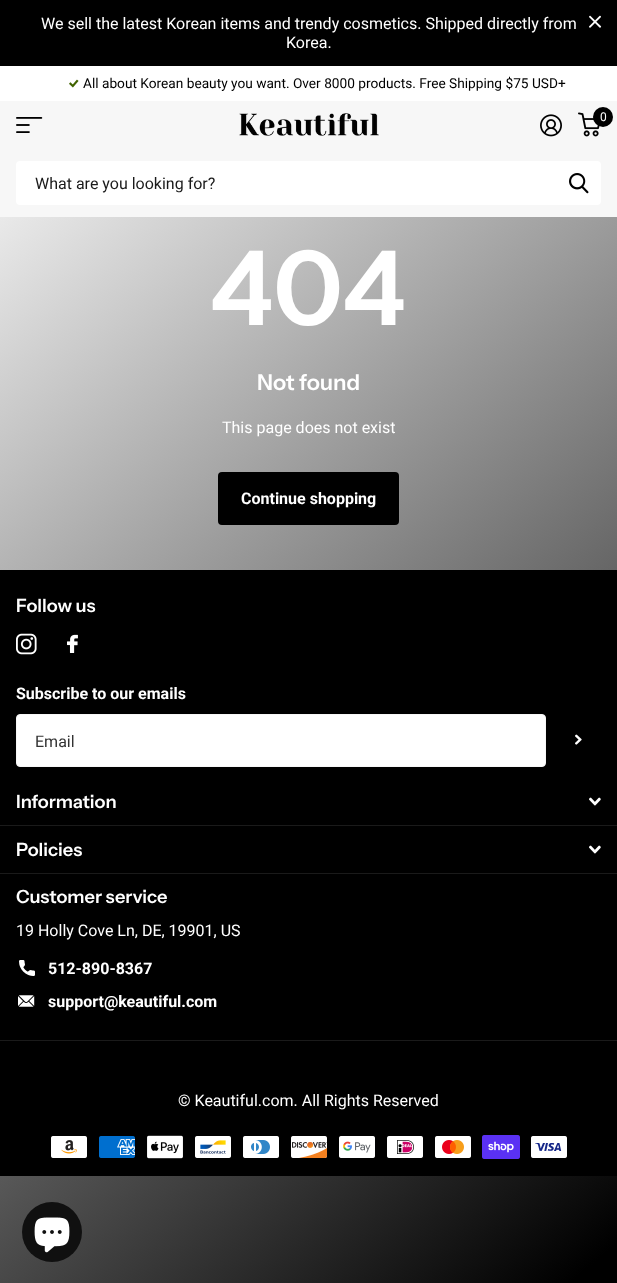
<!DOCTYPE html>
<meta charset="utf-8">
<style>body { margin: 0 } canvas { display: block }</style>
<canvas id="canvas" width="617" height="1283"></canvas>
<img id="img1" src="img_01.png" hidden>
<img id="img2" src="img_02.png" hidden>
<img id="img3" src="img_03.png" hidden>
<img id="img4" src="img_04.png" hidden>
<img id="img5" src="img_05.png" hidden>
<img id="img6" src="img_06.png" hidden>
<img id="img7" src="img_07.png" hidden>
<img id="img8" src="img_08.png" hidden>
<img id="img9" src="img_09.png" hidden>
<img id="img10" src="img_10.png" hidden>
<img id="img11" src="img_11.png" hidden>
<img id="img12" src="img_12.png" hidden>
<img id="img13" src="img_13.png" hidden>
<img id="img14" src="img_14.png" hidden>
<img id="img15" src="img_15.png" hidden>
<img id="img16" src="img_16.png" hidden>
<img id="img17" src="img_17.png" hidden>
<img id="img18" src="img_18.png" hidden>
<img id="img19" src="img_19.png" hidden>
<img id="img20" src="img_20.png" hidden>
<img id="img21" src="img_21.png" hidden>
<img id="img22" src="img_22.png" hidden>
<img id="img23" src="img_23.png" hidden>
<img id="img24" src="img_24.png" hidden>
<img id="img25" src="img_25.png" hidden>
<script>
window.onload = function () {
	const canvas = document.getElementById("canvas");
	const ctx = canvas.getContext("2d");
	ctx.miterLimit = 4;
	ctx.fontKerning = "normal";
	function txt(s, x, y) {
		ctx.fillText(s, x, y);
	}
	function fill(x, y, w, h) {
		ctx.fillRect(x, y, w, h);
	}
	function round(x, y, w, h, r) {
		ctx.beginPath();
		ctx.roundRect(x, y, w, h, r);
		ctx.fill();
	}
	function img(id, x, y, w, h) {
		ctx.drawImage(document.getElementById(id), x, y, w, h);
	}
	let gradient;

	ctx.fillStyle = "#FFFFFF";
	fill(0, 0, 617, 1283);
	ctx.fillStyle = "#000000";
	fill(0, 0, 617, 66);
	img("img1", 589, 15, 13, 13);
	img("img2", 69, 79, 10, 9);
	ctx.fillStyle = "#F7F7F7";
	fill(0, 101, 617, 116);
	img("img3", 16, 117, 27, 16);
	img("img4", 239, 113, 140, 23);
	img("img5", 540, 114, 22, 23);
	img("img6", 578, 112, 22, 25);
	ctx.fillStyle = "#000000";
	ctx.beginPath();
	ctx.arc(603, 117, 10, 0, Math.PI * 2);
	ctx.fill();
	ctx.fillStyle = "#FFFFFF";
	round(16, 161, 585, 44, 4);
	img("img7", 569, 173, 20, 21);
	gradient = ctx.createLinearGradient(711, 1230, -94, 270);
	gradient.addColorStop(0.04, "#000000");
	gradient.addColorStop(1, "#EDEDED");
	ctx.fillStyle = gradient;
	fill(0, 217, 617, 1066);
	ctx.fillStyle = "#000000";
	round(218, 472, 181, 53, 4);
	fill(0, 570, 617, 606);
	img("img8", 16, 633, 21, 22);
	img("img9", 67, 634, 11, 19);
	ctx.fillStyle = "#FFFFFF";
	ctx.beginPath();
	ctx.roundRect(16.5, 714.5, 529, 52, 3.5);
	ctx.fill();
	ctx.strokeStyle = "#F7F7F7";
	ctx.stroke();
	img("img10", 575, 734, 7, 11);
	img("img11", 589, 797, 12, 9);
	ctx.fillStyle = "#1A1A1A";
	fill(0, 825, 617, 1);
	img("img11", 589, 845, 12, 9);
	fill(0, 873, 617, 1);
	img("img12", 19, 960, 16, 16);
	img("img13", 18, 995, 17, 12);
	fill(0, 1040, 617, 1);
	img("img14", 51, 1136, 36, 22);
	img("img15", 99, 1136, 36, 22);
	img("img16", 147, 1135, 36, 24);
	img("img17", 195, 1136, 36, 22);
	img("img18", 243, 1136, 36, 22);
	img("img19", 291, 1136, 37, 22);
	img("img20", 339, 1136, 36, 22);
	img("img21", 387, 1136, 36, 22);
	img("img22", 435, 1136, 36, 22);
	img("img23", 482, 1135, 38, 24);
	img("img24", 531, 1136, 36, 22);
	ctx.fillStyle = "#101010";
	ctx.beginPath();
	ctx.arc(52, 1232, 30, 0, Math.PI * 2);
	ctx.fill();
	img("img25", 34, 1217, 36, 36);
	ctx.font = "16px Roboto";
	ctx.fillStyle = "#FFFFFF";
	txt("We sell the latest Korean items and trendy cosmetics. Shipped directly from", 41, 29);
	txt("Korea.", 286, 48);
	ctx.font = "13.7px Roboto";
	ctx.fillStyle = "#000000";
	txt("All about Korean beauty you want. Over 8000 products. Free Shipping $75 USD+", 83, 88);
	ctx.font = "12px Roboto";
	ctx.fillStyle = "#FFFFFF";
	txt("0", 600, 121);
	ctx.font = "16px Roboto";
	ctx.fillStyle = "#1A1A1A";
	txt("What are you looking for?", 35, 189);
	ctx.font = "600 103px Instrument Sans";
	ctx.fillStyle = "#FFFFFF";
	txt("404", 210, 325);
	ctx.font = "600 22px Instrument Sans";
	txt("Not found", 257, 390);
	ctx.font = "16px Roboto";
	txt("This page does not exist", 222, 433);
	ctx.font = "bold 16px Roboto";
	txt("Continue shopping", 241, 504);
	ctx.font = "600 18.25px Instrument Sans";
	txt("Follow us", 16, 612);
	ctx.font = "bold 16px Roboto";
	txt("Subscribe to our emails", 16, 699);
	ctx.font = "16px Roboto";
	ctx.fillStyle = "#333333";
	txt("Email", 35, 747);
	ctx.font = "600 18.25px Instrument Sans";
	ctx.fillStyle = "#FFFFFF";
	txt("Information", 16, 808);
	txt("Policies", 16, 856);
	txt("Customer service", 16, 903);
	ctx.font = "16px Roboto";
	txt("19 Holly Cove Ln, DE, 19901, US", 16, 936);
	ctx.font = "bold 16px Roboto";
	txt("512-890-8367", 48, 974);
	txt("support@keautiful.com", 48, 1007);
	ctx.font = "16px Roboto";
	txt("© Keautiful.com. All Rights Reserved", 178, 1106);
};
</script>
